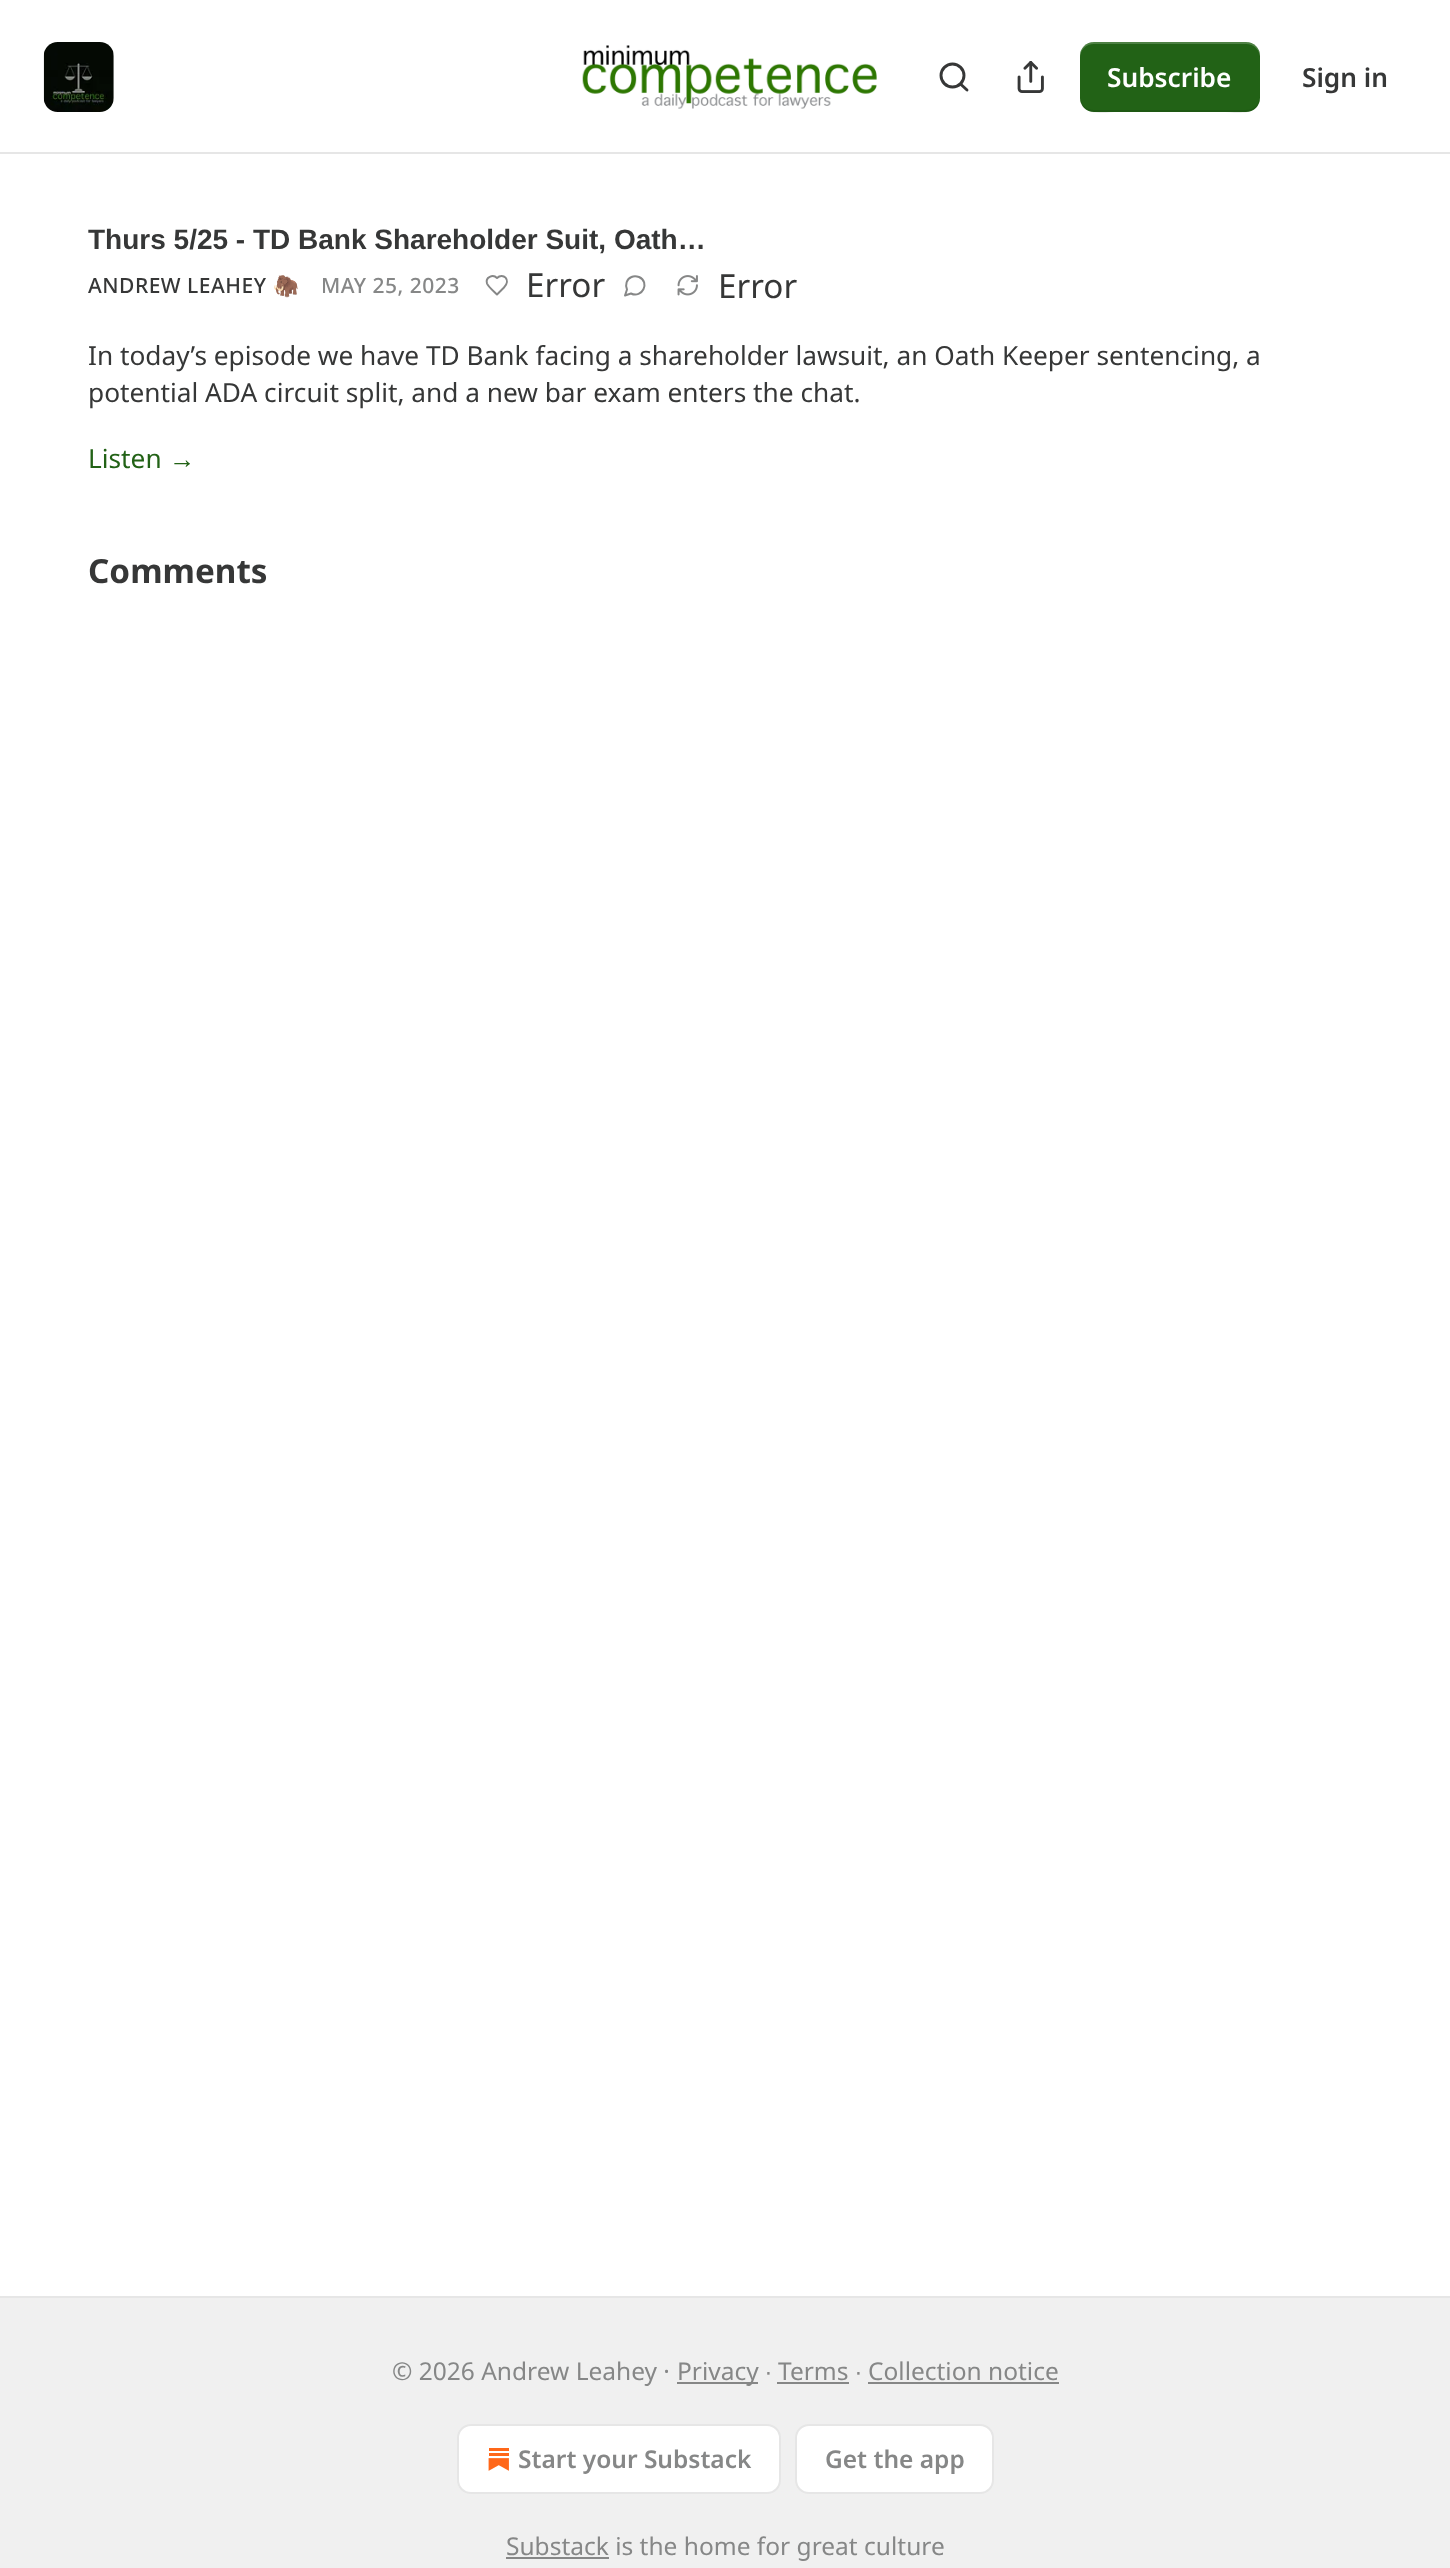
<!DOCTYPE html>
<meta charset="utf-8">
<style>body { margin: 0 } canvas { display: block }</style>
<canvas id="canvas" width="1450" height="2568"></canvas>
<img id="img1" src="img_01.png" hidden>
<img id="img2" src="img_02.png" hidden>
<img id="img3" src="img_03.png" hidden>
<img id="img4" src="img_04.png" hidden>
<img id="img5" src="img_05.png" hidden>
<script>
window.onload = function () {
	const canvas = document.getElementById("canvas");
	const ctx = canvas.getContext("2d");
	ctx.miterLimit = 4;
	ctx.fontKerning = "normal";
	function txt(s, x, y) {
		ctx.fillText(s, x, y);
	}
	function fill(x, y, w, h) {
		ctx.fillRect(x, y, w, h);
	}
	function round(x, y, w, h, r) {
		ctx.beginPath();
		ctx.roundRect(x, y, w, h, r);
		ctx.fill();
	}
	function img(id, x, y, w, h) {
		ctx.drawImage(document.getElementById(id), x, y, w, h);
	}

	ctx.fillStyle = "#FFFFFF";
	fill(0, 0, 1450, 2568);
	ctx.fillStyle = "#E6E6E6";
	fill(0, 152, 1450, 2);
	img("img1", 43, 42, 71, 70);
	img("img2", 582, 45, 295, 64);
	ctx.beginPath();
	ctx.arc(952.5, 75.5, 11.5, 0, Math.PI * 2);
	ctx.strokeStyle = "#363737";
	ctx.lineWidth = 2.9;
	ctx.stroke();
	ctx.beginPath();
	ctx.moveTo(967, 90);
	ctx.lineTo(960.5, 84);
	ctx.lineCap = "round";
	ctx.lineJoin = "round";
	ctx.stroke();
	img("img3", 1017, 61, 27, 32);
	ctx.fillStyle = "#226216";
	round(1080, 42, 180, 70, 14);
	ctx.fillStyle = "rgba(0, 0, 0, 0.1)";
	ctx.beginPath();
	ctx.moveTo(1080, 96);
	ctx.bezierCurveTo(1080, 118, 1104, 112, 1119, 112);
	ctx.lineTo(1221, 112);
	ctx.bezierCurveTo(1236, 112, 1260, 118, 1260, 96);
	ctx.bezierCurveTo(1260, 104, 1254, 110, 1246, 110);
	ctx.lineTo(1094, 110);
	ctx.bezierCurveTo(1086, 110, 1080, 104, 1080, 96);
	ctx.closePath();
	ctx.fill();
	ctx.fillStyle = "rgba(255, 255, 255, 0.2)";
	ctx.beginPath();
	ctx.moveTo(1094, 44);
	ctx.lineTo(1246, 44);
	ctx.bezierCurveTo(1254, 44, 1260, 50, 1260, 58);
	ctx.bezierCurveTo(1260, 36, 1236, 42, 1221, 42);
	ctx.lineTo(1119, 42);
	ctx.bezierCurveTo(1104, 42, 1080, 36, 1080, 58);
	ctx.bezierCurveTo(1080, 50, 1086, 44, 1094, 44);
	ctx.closePath();
	ctx.fill();
	ctx.beginPath();
	ctx.moveTo(504, 287.5);
	ctx.bezierCurveTo(511.5, 280, 503, 272, 497, 278);
	ctx.bezierCurveTo(493, 274, 485, 277, 487, 283.5);
	ctx.bezierCurveTo(488, 286.5, 494.5, 292, 497, 294.5);
	ctx.closePath();
	ctx.strokeStyle = "#868787";
	ctx.lineWidth = 2;
	ctx.stroke();
	ctx.beginPath();
	ctx.moveTo(631, 293.5);
	ctx.bezierCurveTo(642, 299, 650.5, 282, 639, 277);
	ctx.bezierCurveTo(636.5, 276, 633.5, 276, 631.5, 277);
	ctx.bezierCurveTo(626.5, 279, 625, 285, 627, 289.5);
	ctx.lineTo(625, 295.5);
	ctx.closePath();
	ctx.stroke();
	img("img4", 677, 275, 21, 21);
	ctx.fillStyle = "#F0F0F0";
	fill(0, 2298, 1450, 270);
	ctx.fillStyle = "#E6E6E6";
	fill(0, 2296, 1450, 2);
	ctx.fillStyle = "#868787";
	fill(677, 2382, 81, 2);
	fill(777, 2382, 72, 2);
	fill(868, 2382, 191, 2);
	ctx.fillStyle = "#FFFFFF";
	ctx.beginPath();
	ctx.roundRect(458, 2425, 322, 68, 13);
	ctx.fill();
	ctx.strokeStyle = "#E6E6E6";
	ctx.lineJoin = "miter";
	ctx.stroke();
	img("img5", 488, 2448, 21, 23);
	ctx.beginPath();
	ctx.roundRect(796, 2425, 197, 68, 13);
	ctx.fill();
	ctx.stroke();
	ctx.fillStyle = "#868787";
	fill(506, 2557, 103, 2);
	ctx.font = "600 26.25px Noto Sans";
	ctx.fillStyle = "#FFFFFF";
	txt("Subscribe", 1107, 87);
	ctx.fillStyle = "#363737";
	txt("Sign in", 1302, 87);
	ctx.font = "bold 28px Liberation Sans";
	txt("Thurs 5/25 - TD Bank Shareholder Suit, Oath…", 88, 249);
	ctx.letterSpacing = "0.5px";
	ctx.font = "500 21px Noto Sans";
	txt("ANDREW LEAHEY", 88, 293);
	ctx.font = "21px Noto Color Emoji";
	txt("🦣", 273, 293);
	ctx.font = "500 21px Noto Sans";
	ctx.fillStyle = "#868787";
	txt("MAY 25, 2023", 321, 293);
	ctx.letterSpacing = "0px";
	ctx.font = "33.25px Noto Sans";
	ctx.fillStyle = "#363737";
	txt("Error", 526, 297);
	txt("Error", 718, 298);
	ctx.font = "26.25px Noto Sans";
	txt("In today’s episode we have TD Bank facing a shareholder lawsuit, an Oath Keeper sentencing, a", 88, 365);
	txt("potential ADA circuit split, and a new bar exam enters the chat.", 88, 402);
	ctx.fillStyle = "#226216";
	txt("Listen", 88, 468);
	ctx.font = "26.25px Liberation Sans";
	txt("→", 169, 468);
	ctx.font = "bold 33.25px Noto Sans";
	ctx.fillStyle = "#363737";
	txt("Comments", 88, 583);
	ctx.font = "24.5px Noto Sans";
	ctx.fillStyle = "#868787";
	txt("© 2026 Andrew Leahey ·", 392, 2380);
	txt("Privacy", 677, 2380);
	ctx.font = "24.5px Liberation Sans";
	txt("∙", 765, 2380);
	ctx.font = "24.5px Noto Sans";
	txt("Terms", 778, 2380);
	ctx.font = "24.5px Liberation Sans";
	txt("∙", 855, 2380);
	ctx.font = "24.5px Noto Sans";
	txt("Collection notice", 868, 2380);
	ctx.font = "600 24.5px Noto Sans";
	txt("Start your Substack", 518, 2468);
	txt("Get the app", 825, 2468);
	ctx.font = "24.5px Noto Sans";
	txt("Substack is the home for great culture", 506, 2555);
};
</script>
